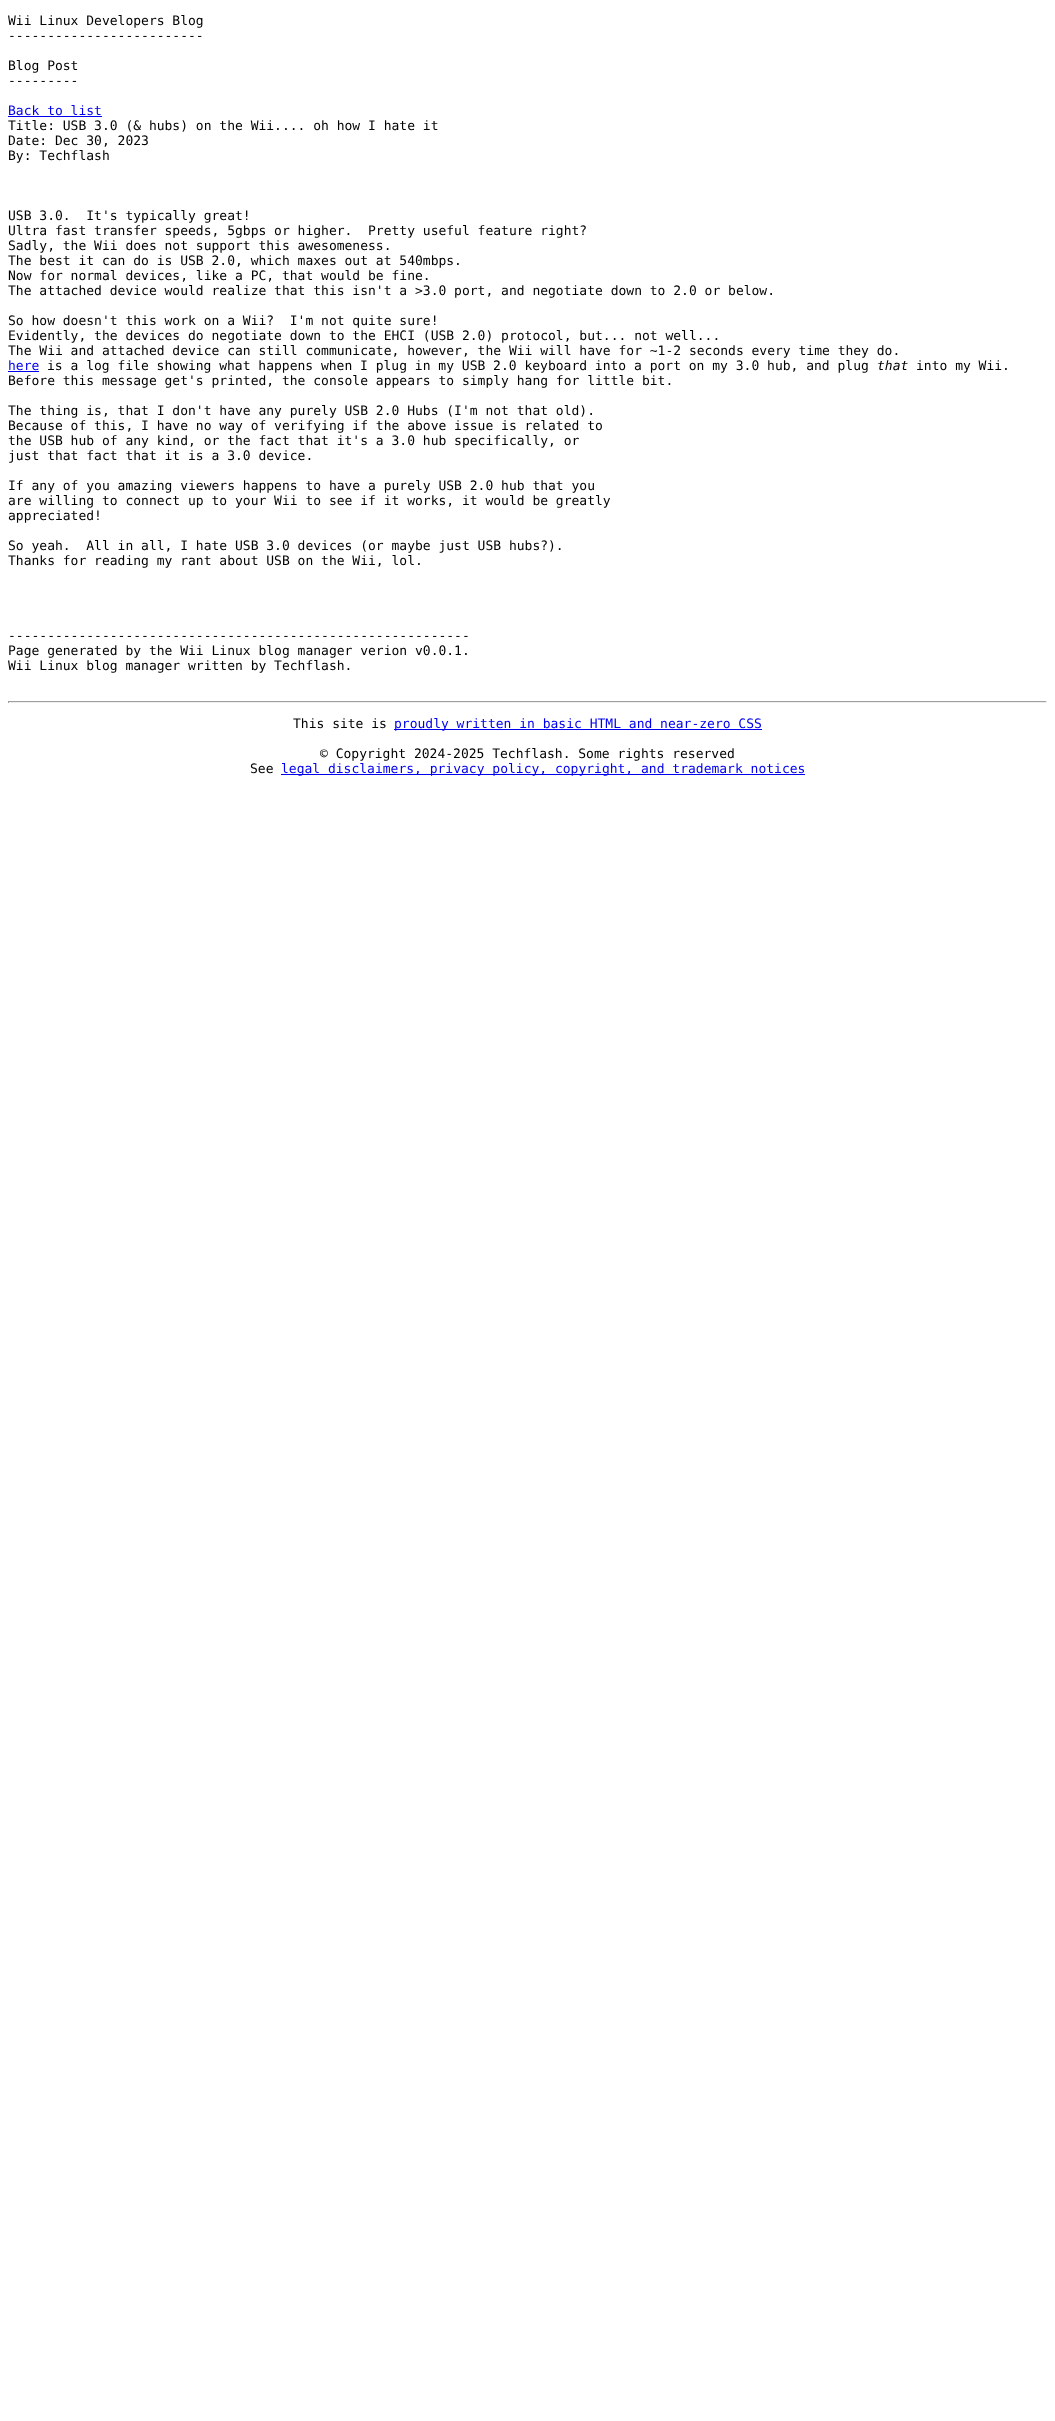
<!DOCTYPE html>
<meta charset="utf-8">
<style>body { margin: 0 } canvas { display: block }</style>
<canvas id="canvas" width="1055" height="2421"></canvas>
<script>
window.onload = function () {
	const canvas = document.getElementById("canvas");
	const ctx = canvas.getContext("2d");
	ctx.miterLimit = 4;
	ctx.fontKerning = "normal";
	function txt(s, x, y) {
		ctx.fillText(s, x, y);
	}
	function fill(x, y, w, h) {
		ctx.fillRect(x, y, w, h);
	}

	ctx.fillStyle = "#FFFFFF";
	fill(0, 0, 1055, 2421);
	ctx.fillStyle = "#0000EE";
	fill(8, 116, 94, 1);
	fill(8, 371, 31, 1);
	ctx.fillStyle = "#9F9F9F";
	fill(8, 701, 1039, 1);
	ctx.fillStyle = "#EEEEEE";
	fill(1046, 701, 1, 2);
	fill(8, 702, 1039, 1);
	ctx.fillStyle = "#9F9F9F";
	fill(8, 701, 1, 2);
	ctx.fillStyle = "#0000EE";
	fill(394, 729, 368, 1);
	fill(281, 774, 524, 1);
	ctx.font = "13px DejaVu Sans Mono";
	ctx.fillStyle = "#000000";
	txt("Wii Linux Developers Blog", 8, 25);
	txt("-------------------------", 8, 40);
	txt("Blog Post", 8, 70);
	txt("---------", 8, 85);
	ctx.fillStyle = "#0000EE";
	txt("Back to list", 8, 115);
	ctx.fillStyle = "#000000";
	txt("Title: USB 3.0 (& hubs) on the Wii.... oh how I hate it", 8, 130);
	txt("Date: Dec 30, 2023", 8, 145);
	txt("By: Techflash", 8, 160);
	txt("USB 3.0.  It's typically great!", 8, 220);
	txt("Ultra fast transfer speeds, 5gbps or higher.  Pretty useful feature right?", 8, 235);
	txt("Sadly, the Wii does not support this awesomeness.", 8, 250);
	txt("The best it can do is USB 2.0, which maxes out at 540mbps.", 8, 265);
	txt("Now for normal devices, like a PC, that would be fine.", 8, 280);
	txt("The attached device would realize that this isn't a >3.0 port, and negotiate down to 2.0 or below.", 8, 295);
	txt("So how doesn't this work on a Wii?  I'm not quite sure!", 8, 325);
	txt("Evidently, the devices do negotiate down to the EHCI (USB 2.0) protocol, but... not well...", 8, 340);
	txt("The Wii and attached device can still communicate, however, the Wii will have for ~1-2 seconds every time they do.", 8, 355);
	ctx.fillStyle = "#0000EE";
	txt("here", 8, 370);
	ctx.fillStyle = "#000000";
	txt("is a log file showing what happens when I plug in my USB 2.0 keyboard into a port on my 3.0 hub, and plug", 47, 370);
	ctx.font = "italic 13px DejaVu Sans Mono";
	txt("that", 877, 370);
	ctx.font = "13px DejaVu Sans Mono";
	txt("into my Wii.", 916, 370);
	txt("Before this message get's printed, the console appears to simply hang for little bit.", 8, 385);
	txt("The thing is, that I don't have any purely USB 2.0 Hubs (I'm not that old).", 8, 415);
	txt("Because of this, I have no way of verifying if the above issue is related to", 8, 430);
	txt("the USB hub of any kind, or the fact that it's a 3.0 hub specifically, or", 8, 445);
	txt("just that fact that it is a 3.0 device.", 8, 460);
	txt("If any of you amazing viewers happens to have a purely USB 2.0 hub that you", 8, 490);
	txt("are willing to connect up to your Wii to see if it works, it would be greatly", 8, 505);
	txt("appreciated!", 8, 520);
	txt("So yeah.  All in all, I hate USB 3.0 devices (or maybe just USB hubs?).", 8, 550);
	txt("Thanks for reading my rant about USB on the Wii, lol.", 8, 565);
	txt("-----------------------------------------------------------", 8, 640);
	txt("Page generated by the Wii Linux blog manager verion v0.0.1.", 8, 655);
	txt("Wii Linux blog manager written by Techflash.", 8, 670);
	txt("This site is", 293, 728);
	ctx.fillStyle = "#0000EE";
	txt("proudly written in basic HTML and near-zero CSS", 394, 728);
	ctx.fillStyle = "#000000";
	txt("© Copyright 2024-2025 Techflash. Some rights reserved", 320, 758);
	txt("See", 250, 773);
	ctx.fillStyle = "#0000EE";
	txt("legal disclaimers, privacy policy, copyright, and trademark notices", 281, 773);
};
</script>
